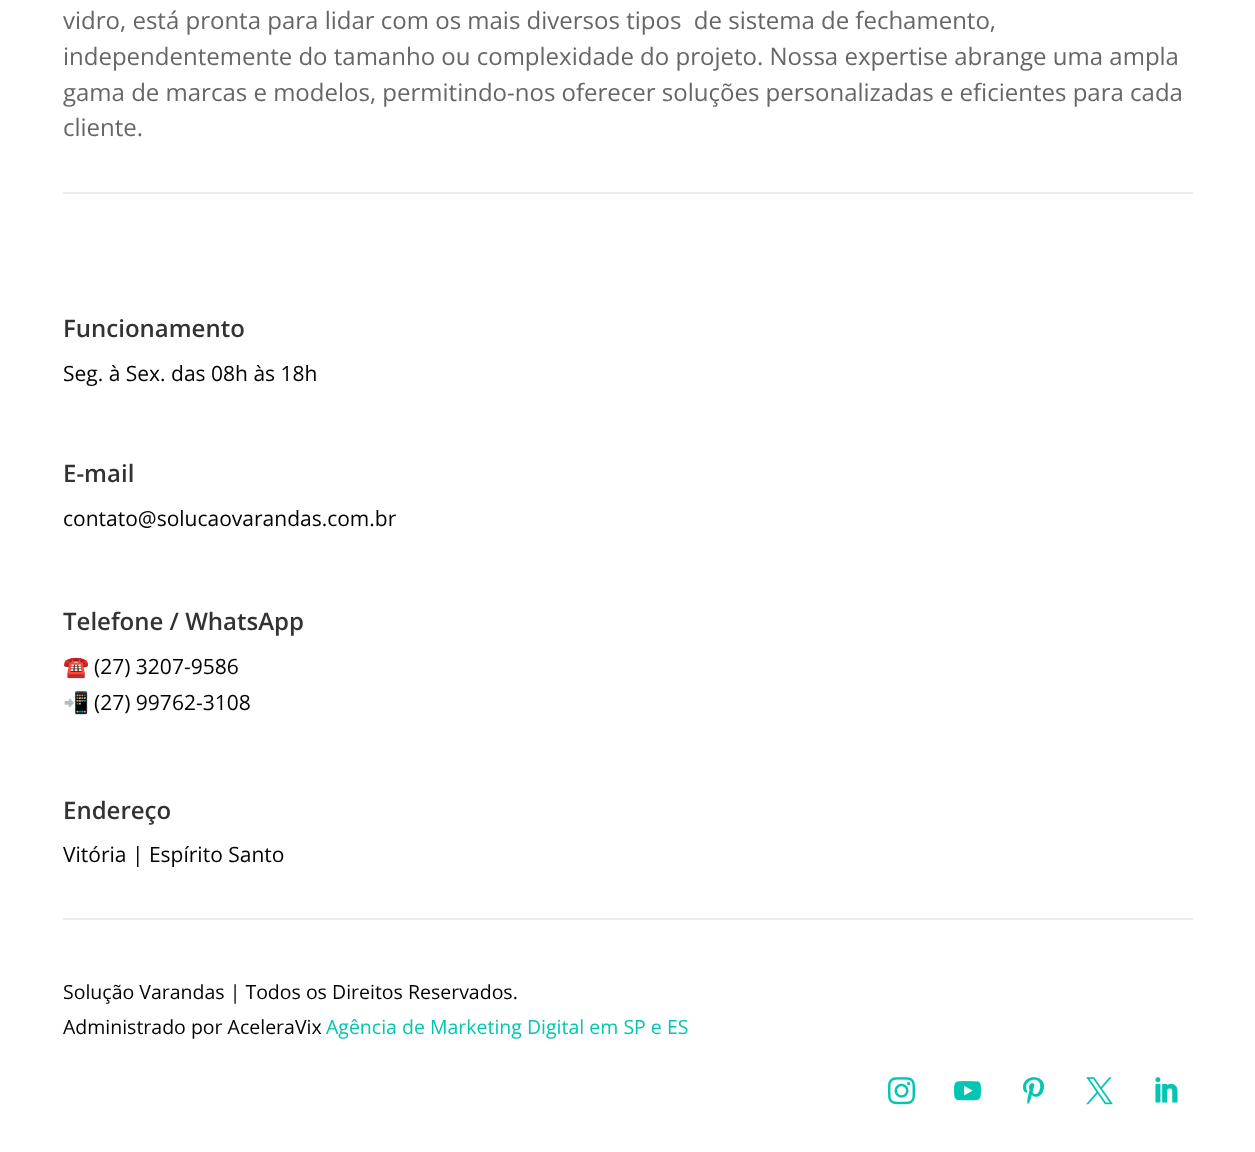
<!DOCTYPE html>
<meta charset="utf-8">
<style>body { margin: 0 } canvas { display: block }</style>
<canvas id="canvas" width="1255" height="1152"></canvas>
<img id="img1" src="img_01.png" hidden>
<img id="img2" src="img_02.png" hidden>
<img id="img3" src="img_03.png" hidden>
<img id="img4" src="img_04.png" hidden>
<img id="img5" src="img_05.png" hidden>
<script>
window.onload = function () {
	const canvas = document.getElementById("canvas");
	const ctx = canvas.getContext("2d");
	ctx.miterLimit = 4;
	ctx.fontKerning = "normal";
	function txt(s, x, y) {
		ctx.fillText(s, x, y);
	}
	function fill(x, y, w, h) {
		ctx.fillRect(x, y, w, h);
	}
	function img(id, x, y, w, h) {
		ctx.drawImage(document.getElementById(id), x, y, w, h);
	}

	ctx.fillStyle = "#FFFFFF";
	fill(0, 0, 1255, 1152);
	ctx.fillStyle = "#EAECF0";
	fill(63, 192, 1130, 2);
	fill(63, 918, 1130, 2);
	img("img1", 888, 1077, 27, 28);
	img("img2", 954, 1081, 27, 20);
	img("img3", 1023, 1077, 21, 28);
	img("img4", 1086, 1077, 27, 28);
	img("img5", 1155, 1077, 23, 26);
	ctx.font = "24px Open Sans";
	ctx.fillStyle = "#666666";
	txt("vidro, está pronta para lidar com os mais diversos tipos  de sistema de fechamento,", 63, 29);
	txt("independentemente do tamanho ou complexidade do projeto. Nossa expertise abrange uma ampla", 63, 65);
	txt("gama de marcas e modelos, permitindo-nos oferecer soluções personalizadas e eficientes para cada", 63, 101);
	txt("cliente.", 63, 136);
	ctx.font = "600 24px Open Sans";
	ctx.fillStyle = "#333333";
	txt("Funcionamento", 63, 337);
	ctx.font = "21px Open Sans";
	ctx.fillStyle = "#000000";
	txt("Seg. à Sex. das 08h às 18h", 63, 381);
	ctx.font = "600 24px Open Sans";
	ctx.fillStyle = "#333333";
	txt("E-mail", 63, 482);
	ctx.font = "21px Open Sans";
	ctx.fillStyle = "#000000";
	txt("contato@solucaovarandas.com.br", 63, 526);
	ctx.font = "600 24px Open Sans";
	ctx.fillStyle = "#333333";
	txt("Telefone / WhatsApp", 63, 630);
	ctx.font = "21px Noto Color Emoji";
	ctx.fillStyle = "#666666";
	txt("☎️", 63, 674);
	ctx.font = "21px Open Sans";
	ctx.fillStyle = "#000000";
	txt("(27) 3207-9586", 94, 674);
	ctx.font = "21px Noto Color Emoji";
	ctx.fillStyle = "#666666";
	txt("📲", 63, 710);
	ctx.font = "21px Open Sans";
	ctx.fillStyle = "#000000";
	txt("(27) 99762-3108", 94, 710);
	ctx.font = "600 24px Open Sans";
	ctx.fillStyle = "#333333";
	txt("Endereço", 63, 819);
	ctx.font = "21px Open Sans";
	ctx.fillStyle = "#000000";
	txt("Vitória | Espírito Santo", 63, 862);
	ctx.font = "19.5px Open Sans";
	txt("Solução Varandas | Todos os Direitos Reservados.", 63, 999);
	txt("Administrado por AceleraVix", 63, 1034);
	ctx.fillStyle = "#02C6B1";
	txt("Agência de Marketing Digital em SP e ES", 326, 1034);
};
</script>
